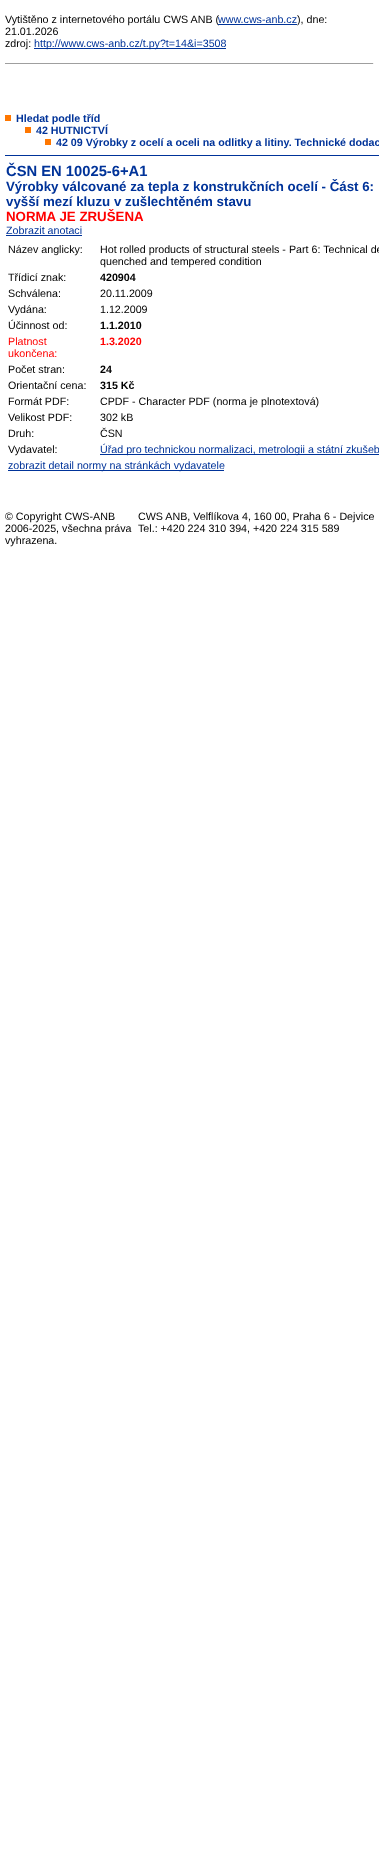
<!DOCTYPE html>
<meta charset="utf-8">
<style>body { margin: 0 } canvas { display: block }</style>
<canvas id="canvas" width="379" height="1858"></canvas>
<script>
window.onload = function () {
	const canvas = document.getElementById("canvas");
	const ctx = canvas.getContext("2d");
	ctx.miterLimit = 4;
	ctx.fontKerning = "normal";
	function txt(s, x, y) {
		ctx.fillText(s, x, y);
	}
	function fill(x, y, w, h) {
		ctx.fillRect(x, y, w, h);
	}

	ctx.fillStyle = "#FFFFFF";
	fill(0, 0, 379, 1858);
	ctx.fillStyle = "#003399";
	fill(34, 48, 192, 1);
	ctx.fillStyle = "#9F9F9F";
	fill(5, 63, 369, 1);
	ctx.fillStyle = "#EEEEEE";
	fill(373, 63, 1, 1);
	ctx.fillStyle = "#FF7700";
	fill(5, 115, 6, 6);
	fill(25, 127, 6, 6);
	fill(45, 139, 6, 6);
	ctx.fillStyle = "#003399";
	fill(5, 155, 374, 1);
	fill(6, 235, 76, 1);
	fill(100, 454, 279, 1);
	fill(8, 470, 216, 1);
	ctx.font = "10.7px Liberation Sans";
	ctx.fillStyle = "#000000";
	txt("Vytištěno z internetového portálu CWS ANB (", 5, 23);
	ctx.fillStyle = "#003399";
	fill(218, 24, 79, 1);
	txt("www.cws-anb.cz", 218, 23);
	ctx.fillStyle = "#000000";
	txt("), dne:", 297, 23);
	txt("21.01.2026", 5, 35);
	txt("zdroj:", 5, 47);
	ctx.fillStyle = "#003399";
	txt("http://www.cws-anb.cz/t.py?t=14&i=3508", 34, 47);
	ctx.font = "bold 10.7px Liberation Sans";
	txt("Hledat podle tříd", 16, 122);
	txt("42 HUTNICTVÍ", 36, 134);
	txt("42 09 Výrobky z ocelí a oceli na odlitky a litiny. Technické dodac", 56, 146);
	ctx.font = "bold 14.75px Liberation Sans";
	txt("ČSN EN 10025-6+A1", 6, 176);
	ctx.font = "bold 13.3px Liberation Sans";
	txt("Výrobky válcované za tepla z konstrukčních ocelí - Část 6:", 6, 191);
	txt("vyšší mezí kluzu v zušlechtěném stavu", 6, 206);
	ctx.fillStyle = "#FF0000";
	txt("NORMA JE ZRUŠENA", 6, 221);
	ctx.font = "10.7px Liberation Sans";
	ctx.fillStyle = "#003399";
	txt("Zobrazit anotaci", 6, 234);
	ctx.fillStyle = "#000000";
	txt("Název anglicky:", 8, 253);
	txt("Hot rolled products of structural steels - Part 6: Technical de", 100, 253);
	txt("quenched and tempered condition", 100, 265);
	txt("Třídicí znak:", 8, 281);
	ctx.font = "bold 10.7px Liberation Sans";
	txt("420904", 100, 281);
	ctx.font = "10.7px Liberation Sans";
	txt("Schválena:", 8, 297);
	txt("20.11.2009", 100, 297);
	txt("Vydána:", 8, 313);
	txt("1.12.2009", 100, 313);
	txt("Účinnost od:", 8, 329);
	ctx.font = "bold 10.7px Liberation Sans";
	txt("1.1.2010", 100, 329);
	ctx.font = "10.7px Liberation Sans";
	ctx.fillStyle = "#FF0000";
	txt("Platnost", 8, 345);
	txt("ukončena:", 8, 357);
	ctx.font = "bold 10.7px Liberation Sans";
	txt("1.3.2020", 100, 345);
	ctx.font = "10.7px Liberation Sans";
	ctx.fillStyle = "#000000";
	txt("Počet stran:", 8, 373);
	ctx.font = "bold 10.7px Liberation Sans";
	txt("24", 100, 373);
	ctx.font = "10.7px Liberation Sans";
	txt("Orientační cena:", 8, 389);
	ctx.font = "bold 10.7px Liberation Sans";
	txt("315 Kč", 100, 389);
	ctx.font = "10.7px Liberation Sans";
	txt("Formát PDF:", 8, 405);
	txt("CPDF - Character PDF (norma je plnotextová)", 100, 405);
	txt("Velikost PDF:", 8, 421);
	txt("302 kB", 100, 421);
	txt("Druh:", 8, 437);
	txt("ČSN", 100, 437);
	txt("Vydavatel:", 8, 453);
	ctx.fillStyle = "#003399";
	txt("Úřad pro technickou normalizaci, metrologii a státní zkušeb", 100, 453);
	txt("zobrazit detail normy na stránkách vydavatele", 8, 469);
	ctx.fillStyle = "#000000";
	txt("© Copyright CWS-ANB", 5, 520);
	txt("2006-2025, všechna práva", 5, 532);
	txt("vyhrazena.", 5, 544);
	txt("CWS ANB, Velflíkova 4, 160 00, Praha 6 - Dejvice", 138, 520);
	txt("Tel.: +420 224 310 394, +420 224 315 589", 138, 532);
};
</script>
